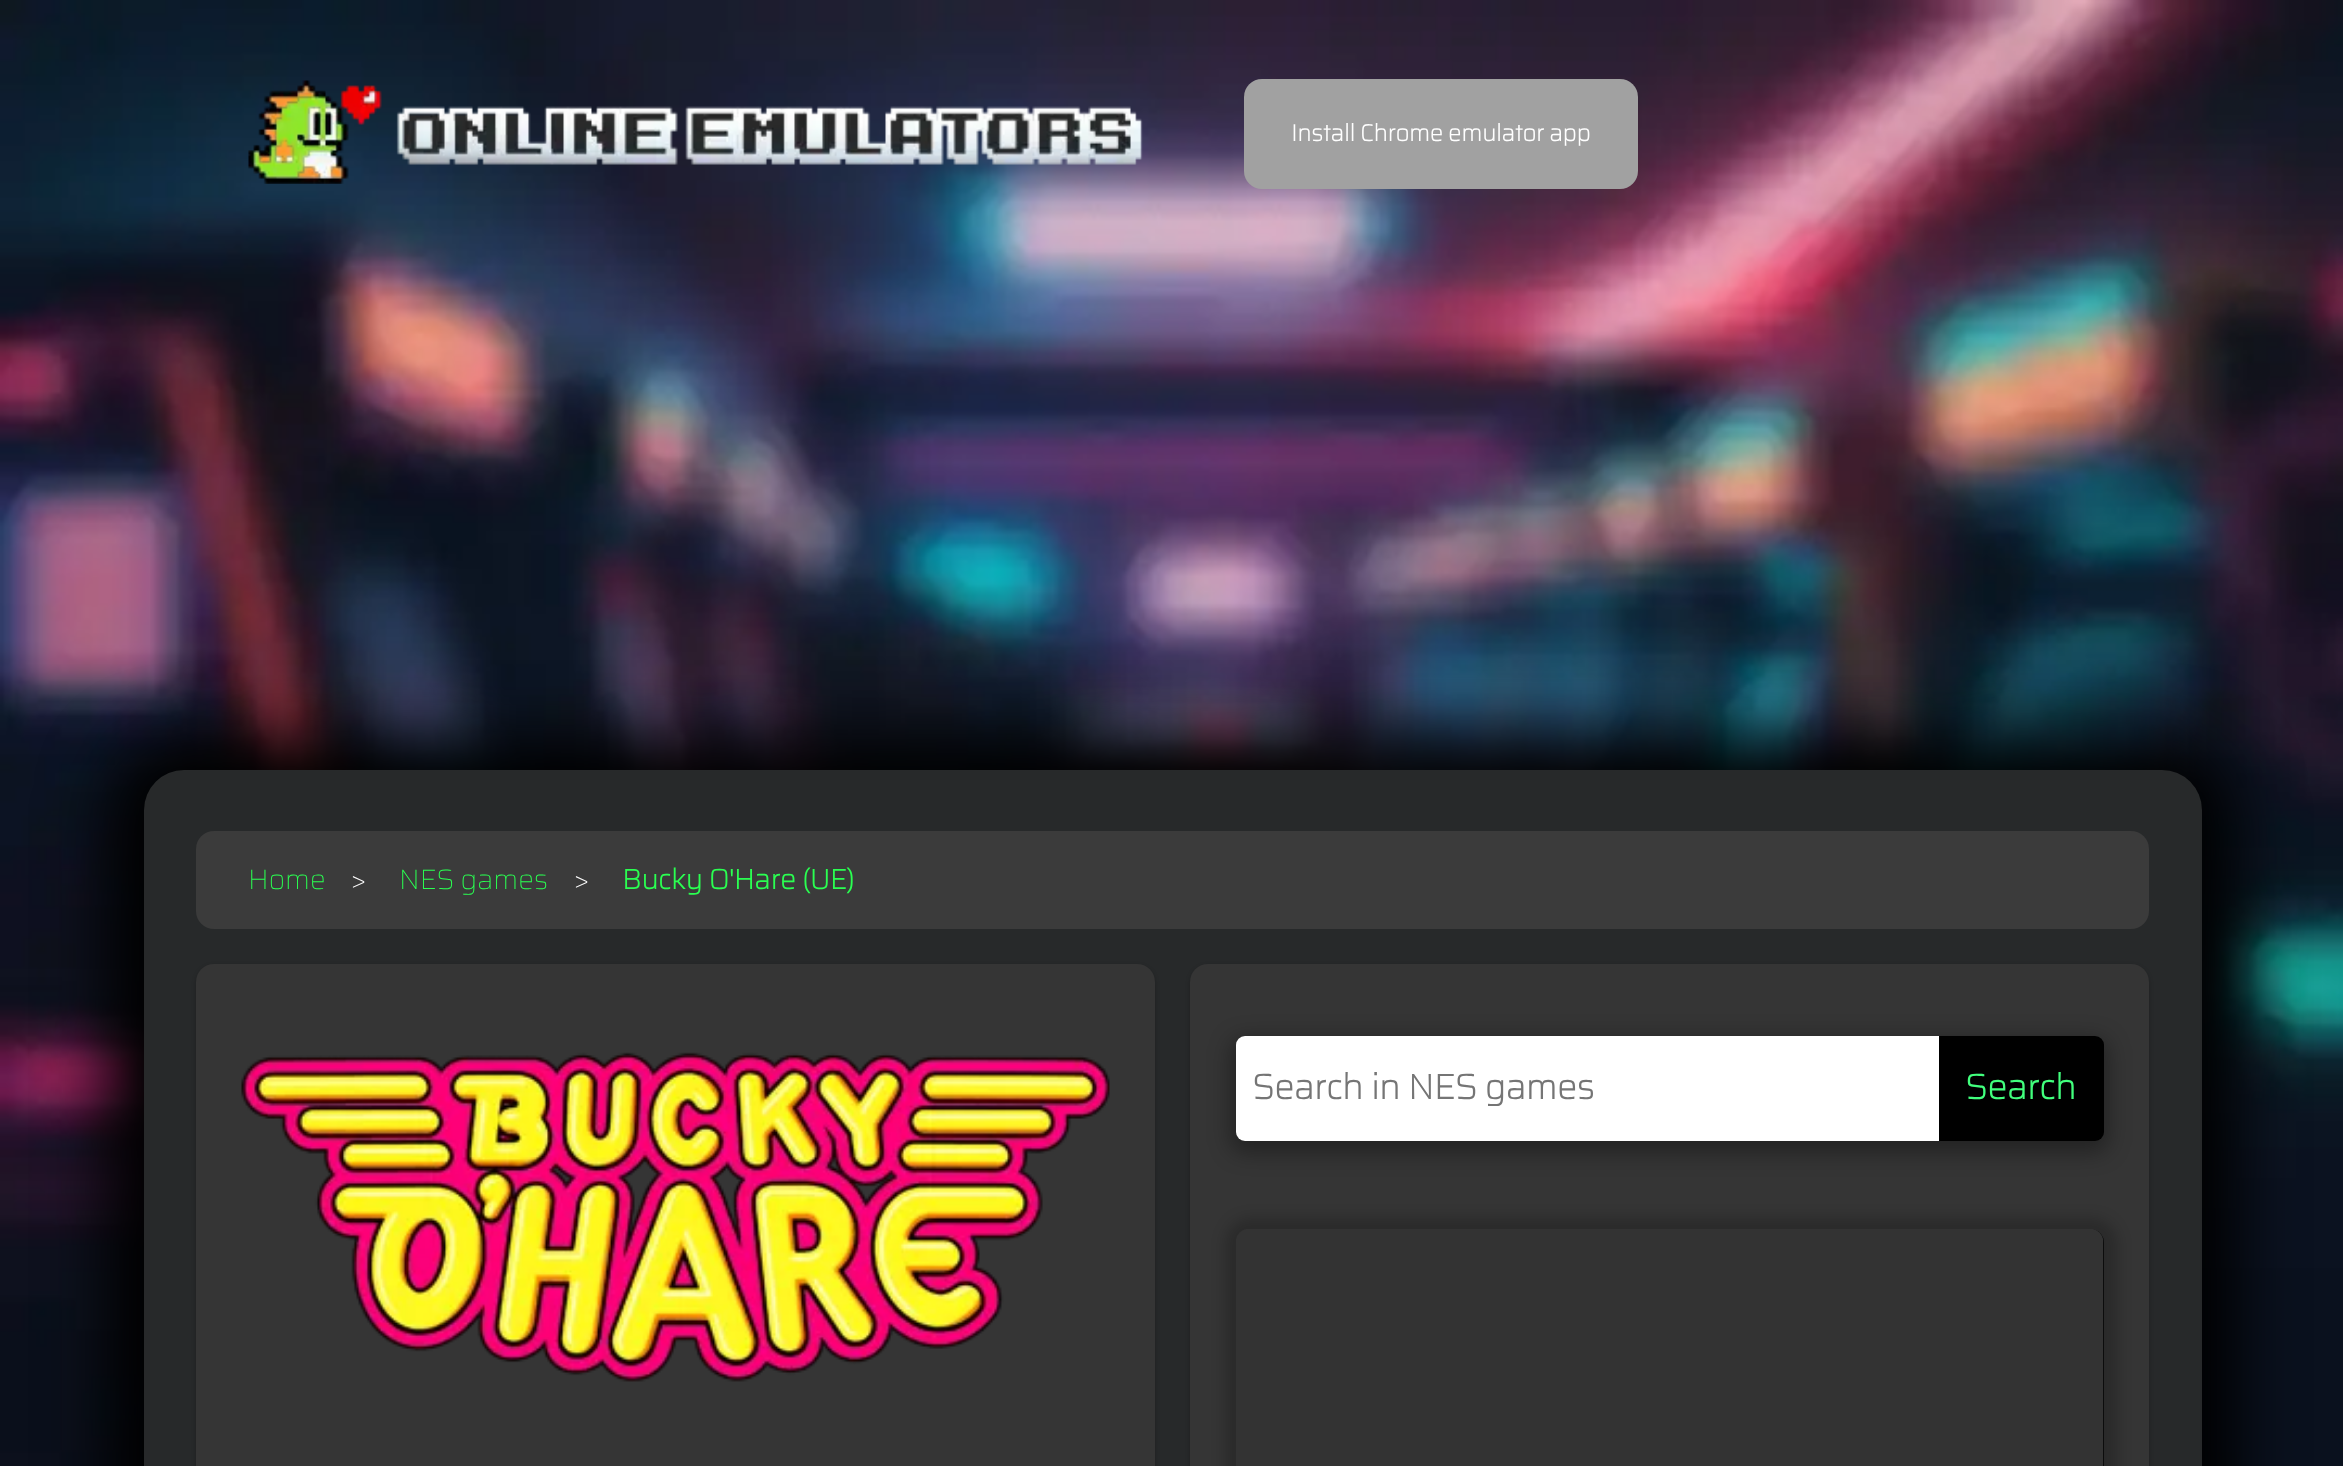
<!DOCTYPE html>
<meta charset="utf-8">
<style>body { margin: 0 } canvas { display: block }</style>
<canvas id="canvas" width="2343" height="1466"></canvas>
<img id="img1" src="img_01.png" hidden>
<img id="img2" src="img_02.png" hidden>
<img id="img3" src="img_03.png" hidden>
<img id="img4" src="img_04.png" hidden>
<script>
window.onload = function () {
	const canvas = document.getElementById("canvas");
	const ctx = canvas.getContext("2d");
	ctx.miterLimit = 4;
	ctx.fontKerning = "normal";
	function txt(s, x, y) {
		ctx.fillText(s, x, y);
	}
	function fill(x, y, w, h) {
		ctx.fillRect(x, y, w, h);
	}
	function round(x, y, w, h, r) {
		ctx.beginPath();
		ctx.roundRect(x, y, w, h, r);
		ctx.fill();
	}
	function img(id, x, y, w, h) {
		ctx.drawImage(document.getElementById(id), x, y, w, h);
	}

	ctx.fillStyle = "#FFFFFF";
	fill(0, 0, 2343, 1466);
	img("img1", 0, 0, 2343, 1466);
	img("img2", 248, 80, 895, 104);
	ctx.fillStyle = "#A1A1A1";
	round(1244, 79, 394, 110, 18);
	ctx.fillStyle = "#000000";
	ctx.filter = "blur(33px)";
	ctx.beginPath();
	ctx.roundRect(107, 739, 2128, 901, 75);
	ctx.fill();
	ctx.filter = "none";
	ctx.fillStyle = "#27292A";
	round(144, 770, 2058, 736, 40);
	ctx.fillStyle = "#3B3B3B";
	round(196, 831, 1953, 98, 18);
	ctx.fillStyle = "rgba(0, 0, 0, 0.24)";
	ctx.filter = "blur(2px)";
	ctx.beginPath();
	ctx.roundRect(196, 966, 959, 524, 18);
	ctx.fill();
	ctx.filter = "none";
	ctx.fillStyle = "#353535";
	round(196, 964, 959, 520, 18);
	img("img3", 241, 1052, 869, 330);
	ctx.fillStyle = "rgba(0, 0, 0, 0.24)";
	ctx.filter = "blur(2px)";
	ctx.beginPath();
	ctx.roundRect(1190, 966, 959, 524, 18);
	ctx.fill();
	ctx.filter = "none";
	ctx.fillStyle = "#353535";
	round(1190, 964, 959, 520, 18);
	ctx.fillStyle = "rgba(0, 0, 0, 0.33)";
	ctx.filter = "blur(10.5px)";
	ctx.beginPath();
	ctx.roundRect(1230, 1038, 879, 115, 14);
	ctx.fill();
	ctx.filter = "none";
	ctx.fillStyle = "#FFFFFF";
	ctx.beginPath();
	ctx.roundRect(1236, 1036, 703, 105, [9, 0, 0, 9]);
	ctx.fill();
	ctx.fillStyle = "#000000";
	ctx.beginPath();
	ctx.roundRect(1939, 1036, 165, 105, [0, 9, 9, 0]);
	ctx.fill();
	ctx.fillStyle = "rgba(0, 0, 0, 0.2)";
	ctx.filter = "blur(7px)";
	ctx.beginPath();
	ctx.roundRect(1225, 1218, 893, 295, 26);
	ctx.fill();
	ctx.filter = "none";
	ctx.fillStyle = "#000000";
	round(1236, 1229, 868, 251, 14);
	img("img4", 1236, 1229, 868, 237);
	ctx.font = "bold 23.3px Saira";
	ctx.fillStyle = "#FFFFFF";
	txt("Install Chrome emulator app", 1291, 141);
	ctx.font = "100 28px Saira";
	ctx.fillStyle = "#2AFF51";
	txt("Home", 248, 889);
	ctx.fillStyle = "#FFFFFF";
	txt(">", 351, 889);
	ctx.fillStyle = "#2AFF51";
	txt("NES games", 399, 889);
	ctx.fillStyle = "#FFFFFF";
	txt(">", 574, 889);
	ctx.font = "bold 28px Saira";
	ctx.fillStyle = "#2AFF51";
	txt("Bucky O'Hare (UE)", 622, 889);
	ctx.save();
	ctx.beginPath();
	ctx.rect(1253, 1071, 637, 35);
	ctx.clip();
	ctx.font = "bold 35px Saira";
	ctx.fillStyle = "#757575";
	txt("Search in NES games", 1252, 1099);
	ctx.restore();
	ctx.font = "bold 35px Saira";
	ctx.fillStyle = "#41FF7D";
	txt("Search", 1965, 1099);
};
</script>
